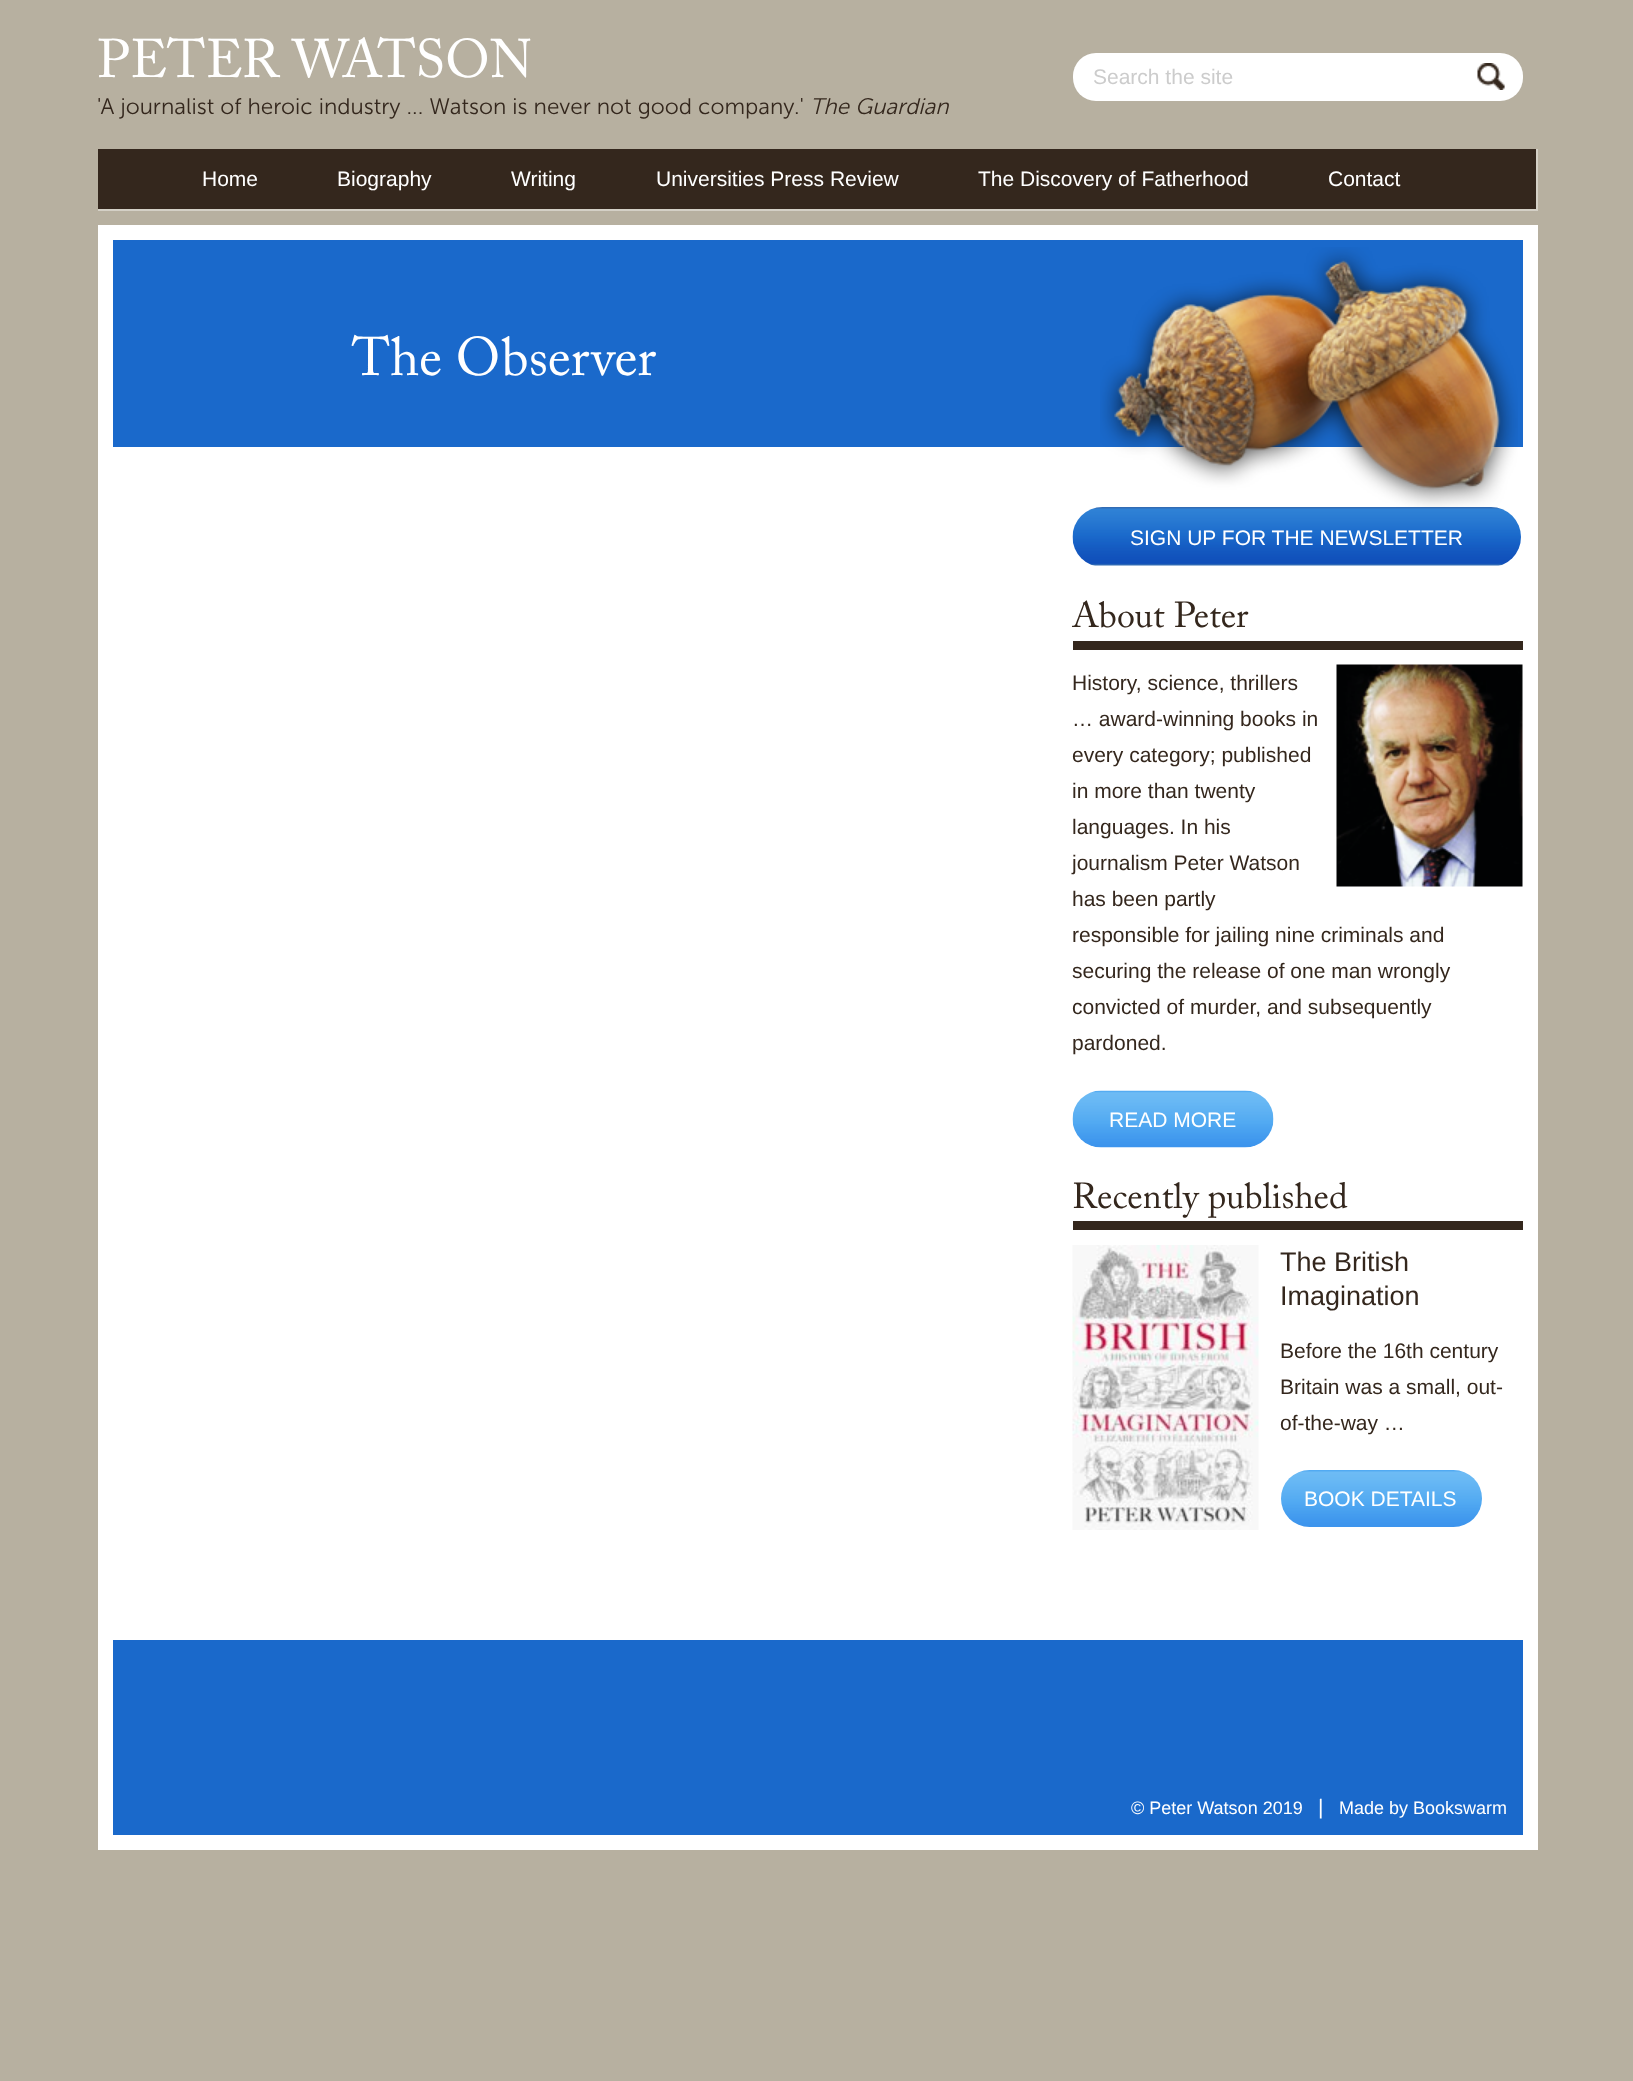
<!DOCTYPE html>
<meta charset="utf-8">
<style>body { margin: 0 } canvas { display: block }</style>
<canvas id="canvas" width="1633" height="2081"></canvas>
<img id="img1" src="img_01.png" hidden>
<img id="img2" src="img_03.png" hidden>
<img id="img3" src="img_02.png" hidden>
<img id="img4" src="img_04.png" hidden>
<img id="img5" src="img_05.png" hidden>
<img id="img6" src="img_06.png" hidden>
<img id="img7" src="img_07.png" hidden>
<script>
window.onload = function () {
	const canvas = document.getElementById("canvas");
	const ctx = canvas.getContext("2d");
	ctx.miterLimit = 4;
	ctx.fontKerning = "normal";
	function txt(s, x, y) {
		ctx.fillText(s, x, y);
	}
	function fill(x, y, w, h) {
		ctx.fillRect(x, y, w, h);
	}
	function round(x, y, w, h, r) {
		ctx.beginPath();
		ctx.roundRect(x, y, w, h, r);
		ctx.fill();
	}
	function img(id, x, y, w, h) {
		ctx.drawImage(document.getElementById(id), x, y, w, h);
	}

	ctx.fillStyle = "#B7B0A0";
	fill(0, 0, 1633, 2081);
	ctx.fillStyle = "#FFFFFF";
	round(1073, 53, 450, 48, 23);
	img("img1", 1477, 63, 28, 27);
	ctx.fillStyle = "#34271D";
	fill(98, 149, 1438, 60);
	ctx.fillStyle = "#D4D0C6";
	fill(1536, 149, 2, 61);
	fill(98, 209, 1440, 2);
	ctx.fillStyle = "#FFFFFF";
	fill(98, 225, 1440, 1625);
	ctx.fillStyle = "#1A69CB";
	fill(113, 240, 1410, 207);
	img("img2", 1072, 507, 449, 59);
	img("img3", 1100, 247, 418, 261);
	ctx.fillStyle = "#34271D";
	fill(1073, 641, 450, 9);
	img("img4", 1336, 664, 187, 223);
	img("img5", 1072, 1090, 202, 58);
	fill(1073, 1221, 450, 9);
	img("img6", 1072, 1245, 187, 285);
	img("img7", 1281, 1470, 201, 57);
	ctx.fillStyle = "#1A69CB";
	fill(113, 1640, 1410, 195);
	ctx.font = "54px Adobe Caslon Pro";
	ctx.fillStyle = "#FFFFFF";
	txt("PETER WATSON", 97, 77);
	ctx.font = "300 22.5px 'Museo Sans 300'";
	ctx.fillStyle = "#34271D";
	txt("'A journalist of heroic industry ... Watson is never not good company.'", 97, 114);
	ctx.font = "italic 300 22.5px 'Museo Sans 300'";
	txt("The Guardian", 810, 114);
	ctx.font = "21px Liberation Sans";
	ctx.fillStyle = "#CCCCCC";
	txt("Search the site", 1093, 84);
	ctx.fillStyle = "#FFFFFF";
	txt("Home", 202, 186);
	txt("Biography", 337, 186);
	txt("Writing", 511, 186);
	txt("Universities Press Review", 656, 186);
	txt("The Discovery of Fatherhood", 978, 186);
	txt("Contact", 1328, 186);
	ctx.font = "54px Adobe Caslon Pro";
	txt("The Observer", 352, 375);
	ctx.font = "21px Liberation Sans";
	txt("SIGN UP FOR THE NEWSLETTER", 1130, 545);
	ctx.font = "36px Adobe Caslon Pro";
	ctx.fillStyle = "#34271D";
	txt("About Peter", 1072, 627);
	ctx.font = "21px Liberation Sans";
	txt("History, science, thrillers", 1072, 690);
	txt("… award-winning books in", 1072, 726);
	txt("every category; published", 1072, 762);
	txt("in more than twenty", 1072, 798);
	txt("languages. In his", 1072, 834);
	txt("journalism Peter Watson", 1072, 870);
	txt("has been partly", 1072, 906);
	txt("responsible for jailing nine criminals and", 1072, 942);
	txt("securing the release of one man wrongly", 1072, 978);
	txt("convicted of murder, and subsequently", 1072, 1014);
	txt("pardoned.", 1072, 1050);
	ctx.fillStyle = "#FFFFFF";
	txt("READ MORE", 1109, 1127);
	ctx.font = "36px Adobe Caslon Pro";
	ctx.fillStyle = "#34271D";
	txt("Recently published", 1072, 1208);
	ctx.font = "27px Liberation Sans";
	txt("The British", 1280, 1271);
	txt("Imagination", 1280, 1305);
	ctx.font = "21px Liberation Sans";
	txt("Before the 16th century", 1280, 1358);
	txt("Britain was a small, out-", 1280, 1394);
	txt("of-the-way …", 1280, 1430);
	ctx.fillStyle = "#FFFFFF";
	txt("BOOK DETAILS", 1304, 1506);
	ctx.font = "18px Liberation Sans";
	txt("© Peter Watson 2019", 1131, 1814);
	ctx.font = "21px Liberation Sans";
	txt("|", 1318, 1814);
	ctx.font = "18px Liberation Sans";
	txt("Made by Bookswarm", 1339, 1814);
};
</script>
